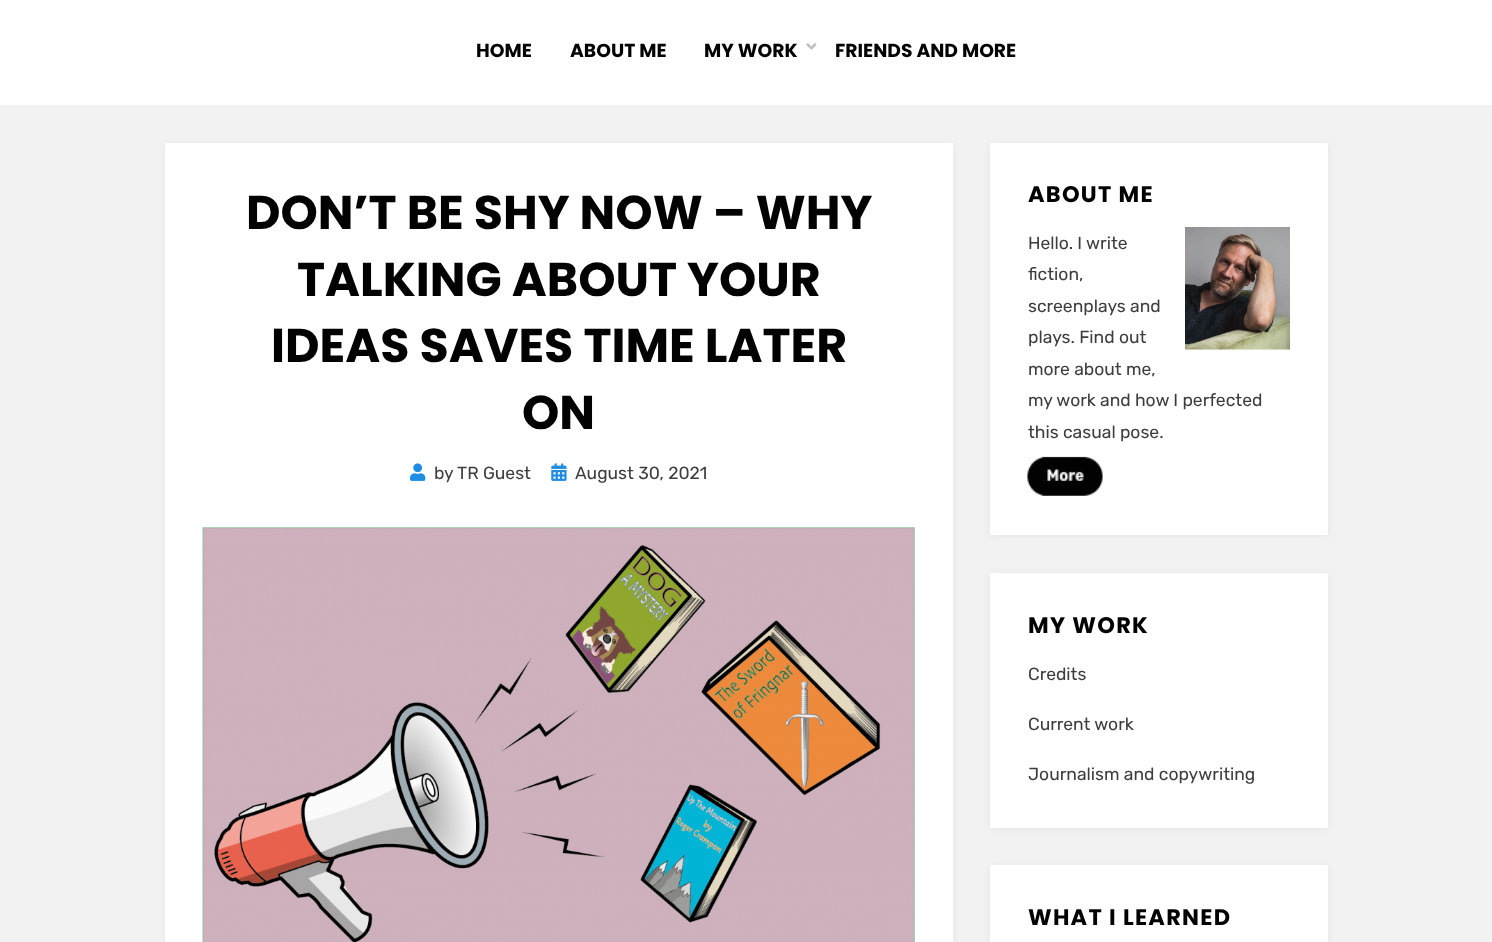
<!DOCTYPE html>
<meta charset="utf-8">
<style>body { margin: 0 } canvas { display: block }</style>
<canvas id="canvas" width="1492" height="942"></canvas>
<img id="img1" src="img_01.png" hidden>
<img id="img2" src="img_02.png" hidden>
<img id="img3" src="img_03.png" hidden>
<img id="img4" src="img_04.png" hidden>
<img id="img5" src="img_05.png" hidden>
<img id="img6" src="img_06.png" hidden>
<script>
window.onload = function () {
	const canvas = document.getElementById("canvas");
	const ctx = canvas.getContext("2d");
	ctx.miterLimit = 4;
	ctx.fontKerning = "normal";
	function txt(s, x, y) {
		ctx.fillText(s, x, y);
	}
	function fill(x, y, w, h) {
		ctx.fillRect(x, y, w, h);
	}
	function img(id, x, y, w, h) {
		ctx.drawImage(document.getElementById(id), x, y, w, h);
	}

	ctx.fillStyle = "#F2F2F2";
	fill(0, 0, 1492, 942);
	ctx.fillStyle = "#FFFFFF";
	fill(0, 0, 1492, 105);
	img("img1", 806, 43, 11, 7);
	ctx.fillStyle = "rgba(0, 0, 1, 0.05)";
	ctx.filter = "blur(3px)";
	ctx.beginPath();
	ctx.rect(165, 144, 788, 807);
	ctx.fill();
	ctx.filter = "none";
	ctx.fillStyle = "#FFFFFF";
	fill(165, 143, 788, 799);
	img("img2", 410, 463, 16, 18);
	img("img3", 551, 463, 16, 18);
	img("img4", 202, 527, 713, 415);
	ctx.fillStyle = "rgba(0, 0, 1, 0.05)";
	ctx.filter = "blur(3px)";
	ctx.beginPath();
	ctx.rect(990, 144, 338, 392);
	ctx.fill();
	ctx.filter = "none";
	ctx.fillStyle = "#FFFFFF";
	fill(990, 143, 338, 392);
	img("img5", 1185, 227, 105, 123);
	img("img6", 1027, 456, 76, 40);
	ctx.fillStyle = "rgba(0, 0, 1, 0.05)";
	ctx.filter = "blur(3px)";
	ctx.beginPath();
	ctx.rect(990, 574, 338, 255);
	ctx.fill();
	ctx.filter = "none";
	ctx.fillStyle = "#FFFFFF";
	fill(990, 573, 338, 255);
	ctx.fillStyle = "rgba(0, 0, 1, 0.05)";
	ctx.filter = "blur(3px)";
	ctx.beginPath();
	ctx.rect(990, 866, 338, 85);
	ctx.fill();
	ctx.filter = "none";
	ctx.fillStyle = "#FFFFFF";
	fill(990, 865, 338, 77);
	ctx.font = "bold 18.75px Poppins";
	ctx.fillStyle = "#020202";
	txt("HOME", 476, 57);
	txt("ABOUT ME", 570, 57);
	txt("MY WORK", 704, 57);
	txt("FRIENDS AND MORE", 835, 57);
	ctx.font = "bold 47.5px Poppins";
	txt("DON’T BE SHY NOW – WHY", 246, 229);
	txt("TALKING ABOUT YOUR", 297, 296);
	txt("IDEAS SAVES TIME LATER", 271, 362);
	txt("ON", 522, 429);
	ctx.font = "17.5px Rubik";
	ctx.fillStyle = "#3D3D3D";
	txt("by", 434, 479);
	txt("TR Guest", 457, 479);
	txt("August 30, 2021", 575, 479);
	ctx.letterSpacing = "1.25px";
	ctx.font = "bold 22.5px Poppins";
	ctx.fillStyle = "#020202";
	txt("ABOUT ME", 1028, 202);
	ctx.letterSpacing = "0px";
	ctx.font = "17.5px Rubik";
	ctx.fillStyle = "#3D3D3D";
	txt("Hello. I write", 1028, 249);
	txt("fiction,", 1028, 280);
	txt("screenplays and", 1028, 312);
	txt("plays. Find out", 1028, 343);
	txt("more about me,", 1028, 375);
	txt("my work and how I perfected", 1028, 406);
	txt("this casual pose.", 1028, 438);
	ctx.letterSpacing = "1.25px";
	ctx.font = "bold 22.5px Poppins";
	ctx.fillStyle = "#020202";
	txt("MY WORK", 1028, 633);
	ctx.letterSpacing = "0px";
	ctx.font = "17.5px Rubik";
	ctx.fillStyle = "#3D3D3D";
	txt("Credits", 1028, 680);
	txt("Current work", 1028, 730);
	txt("Journalism and copywriting", 1028, 780);
	ctx.letterSpacing = "1.25px";
	ctx.font = "bold 22.5px Poppins";
	ctx.fillStyle = "#020202";
	txt("WHAT I LEARNED", 1028, 925);
};
</script>
